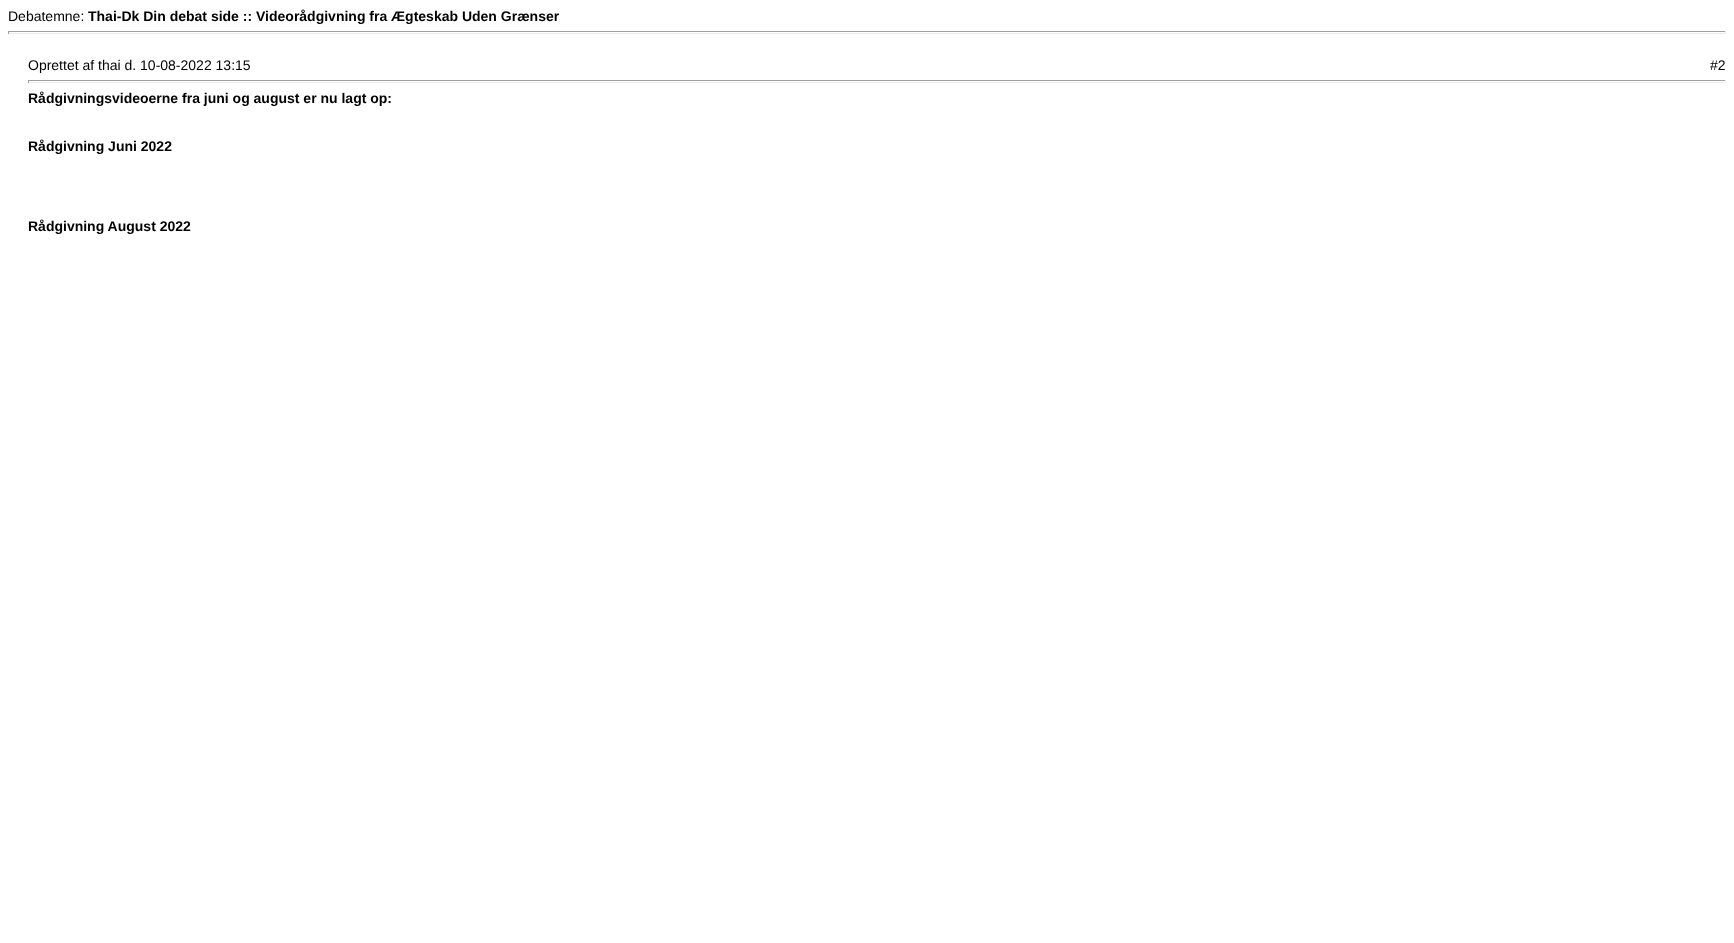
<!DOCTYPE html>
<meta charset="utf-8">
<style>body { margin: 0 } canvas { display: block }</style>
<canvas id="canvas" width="1734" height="943"></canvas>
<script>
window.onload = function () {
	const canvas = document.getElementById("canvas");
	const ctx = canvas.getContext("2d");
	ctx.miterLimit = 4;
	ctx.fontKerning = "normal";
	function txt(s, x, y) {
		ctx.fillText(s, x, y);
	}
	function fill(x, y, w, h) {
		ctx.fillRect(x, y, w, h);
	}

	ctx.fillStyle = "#FFFFFF";
	fill(0, 0, 1734, 943);
	ctx.fillStyle = "#9F9F9F";
	fill(8, 31, 1718, 1);
	ctx.fillStyle = "#EEEEEE";
	fill(1725, 31, 1, 3);
	fill(8, 33, 1718, 1);
	ctx.fillStyle = "#9F9F9F";
	fill(8, 31, 1, 3);
	fill(28, 80, 1698, 1);
	ctx.fillStyle = "#EEEEEE";
	fill(1725, 80, 1, 3);
	fill(28, 82, 1698, 1);
	ctx.fillStyle = "#9F9F9F";
	fill(28, 80, 1, 3);
	ctx.font = "14px Liberation Sans";
	ctx.fillStyle = "#000000";
	txt("Debatemne:", 8, 21);
	ctx.font = "bold 14px Liberation Sans";
	txt("Thai-Dk Din debat side :: Videorådgivning fra Ægteskab Uden Grænser", 88, 21);
	ctx.font = "14px Liberation Sans";
	txt("Oprettet af thai d. 10-08-2022 13:15", 28, 70);
	txt("#2", 1710, 70);
	ctx.font = "bold 14px Liberation Sans";
	txt("Rådgivningsvideoerne fra juni og august er nu lagt op:", 28, 103);
	txt("Rådgivning Juni 2022", 28, 151);
	txt("Rådgivning August 2022", 28, 231);
};
</script>
